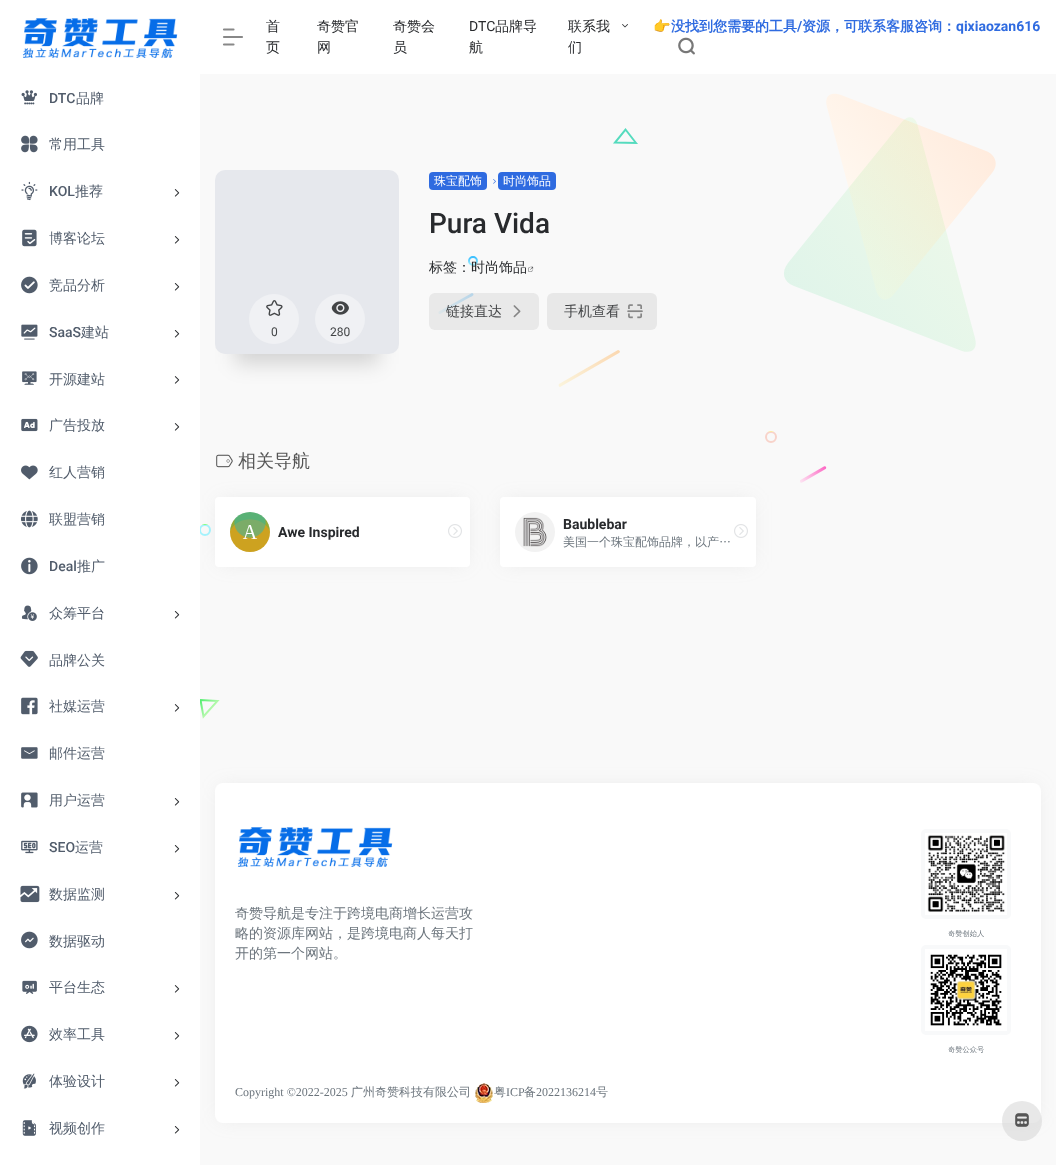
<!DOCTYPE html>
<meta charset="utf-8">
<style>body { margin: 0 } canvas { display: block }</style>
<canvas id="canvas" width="1056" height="1165"></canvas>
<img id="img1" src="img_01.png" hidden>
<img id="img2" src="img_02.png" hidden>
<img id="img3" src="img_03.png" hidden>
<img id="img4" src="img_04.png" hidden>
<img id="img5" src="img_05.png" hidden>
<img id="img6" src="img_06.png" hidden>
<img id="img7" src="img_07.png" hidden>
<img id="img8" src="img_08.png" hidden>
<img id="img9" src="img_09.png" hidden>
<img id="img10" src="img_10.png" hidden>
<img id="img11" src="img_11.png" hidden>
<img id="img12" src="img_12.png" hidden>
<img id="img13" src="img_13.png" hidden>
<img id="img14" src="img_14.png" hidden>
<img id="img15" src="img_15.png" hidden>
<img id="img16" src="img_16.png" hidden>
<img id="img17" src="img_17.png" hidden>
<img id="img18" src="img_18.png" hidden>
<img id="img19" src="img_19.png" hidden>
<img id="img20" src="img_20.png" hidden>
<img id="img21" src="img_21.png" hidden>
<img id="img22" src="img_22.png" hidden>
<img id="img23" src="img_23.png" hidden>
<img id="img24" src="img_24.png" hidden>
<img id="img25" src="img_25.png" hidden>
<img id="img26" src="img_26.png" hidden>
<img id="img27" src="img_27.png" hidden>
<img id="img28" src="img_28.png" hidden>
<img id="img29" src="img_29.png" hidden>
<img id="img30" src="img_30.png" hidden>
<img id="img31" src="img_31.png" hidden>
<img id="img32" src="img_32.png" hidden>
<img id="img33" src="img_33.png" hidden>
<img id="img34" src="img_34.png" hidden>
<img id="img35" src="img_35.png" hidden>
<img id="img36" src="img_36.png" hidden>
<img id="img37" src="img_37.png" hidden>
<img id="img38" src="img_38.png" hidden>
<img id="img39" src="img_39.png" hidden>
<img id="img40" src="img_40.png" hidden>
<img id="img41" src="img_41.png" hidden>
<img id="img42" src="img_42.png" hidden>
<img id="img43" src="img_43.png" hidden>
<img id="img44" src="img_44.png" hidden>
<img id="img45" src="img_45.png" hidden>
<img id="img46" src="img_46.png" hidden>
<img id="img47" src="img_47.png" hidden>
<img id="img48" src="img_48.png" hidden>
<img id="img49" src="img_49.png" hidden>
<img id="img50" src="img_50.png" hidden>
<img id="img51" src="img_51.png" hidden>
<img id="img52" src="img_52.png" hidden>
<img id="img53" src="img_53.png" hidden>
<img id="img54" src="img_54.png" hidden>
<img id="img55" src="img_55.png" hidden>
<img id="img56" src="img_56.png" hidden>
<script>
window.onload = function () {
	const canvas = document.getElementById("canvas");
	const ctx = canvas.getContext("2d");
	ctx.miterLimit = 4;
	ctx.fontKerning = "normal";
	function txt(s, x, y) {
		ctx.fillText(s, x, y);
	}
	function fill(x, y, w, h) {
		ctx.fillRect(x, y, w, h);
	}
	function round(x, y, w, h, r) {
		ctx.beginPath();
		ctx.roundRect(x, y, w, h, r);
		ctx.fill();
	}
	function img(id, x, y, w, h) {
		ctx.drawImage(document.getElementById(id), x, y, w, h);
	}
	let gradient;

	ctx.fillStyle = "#F9F9F9";
	fill(0, 0, 1056, 1165);
	ctx.fillStyle = "#FFFFFF";
	fill(0, 0, 1056, 74);
	img("img1", 22, 18, 156, 40);
	ctx.beginPath();
	ctx.arc(205, 530, 5, 0, Math.PI * 2);
	gradient = ctx.createLinearGradient(205, 525, 205, 535);
	gradient.addColorStop(0, "#7BFD81");
	gradient.addColorStop(0, "#A4F3FD");
	ctx.strokeStyle = gradient;
	ctx.lineWidth = 2;
	ctx.stroke();
	ctx.beginPath();
	ctx.moveTo(217.5, 701);
	ctx.lineTo(200.5, 700);
	ctx.lineTo(203.5, 716.5);
	ctx.closePath();
	gradient = ctx.createLinearGradient(201, 700, 215, 713);
	gradient.addColorStop(0, "#55EE71");
	gradient.addColorStop(1, "#DBFDC4");
	ctx.strokeStyle = gradient;
	ctx.stroke();
	ctx.fillStyle = "rgba(158, 158, 158, 0.2)";
	ctx.filter = "blur(10px)";
	ctx.beginPath();
	ctx.rect(220, 502, 245, 60);
	ctx.fill();
	ctx.filter = "none";
	ctx.filter = "blur(10px)";
	ctx.beginPath();
	ctx.roundRect(220, 788, 816, 330, 3);
	ctx.fill();
	ctx.filter = "none";
	ctx.fillStyle = "#FFFFFF";
	fill(0, 74, 200, 1091);
	img("img2", 21, 90, 16, 15);
	img("img3", 21, 135, 17, 18);
	img("img4", 21, 181, 17, 20);
	img("img5", 174, 189, 6, 8);
	img("img6", 22, 229, 15, 18);
	img("img7", 174, 236, 6, 8);
	img("img8", 21, 276, 17, 18);
	img("img9", 174, 283, 6, 8);
	img("img10", 21, 324, 17, 16);
	img("img11", 174, 330, 6, 8);
	img("img12", 22, 371, 15, 14);
	img("img13", 174, 376, 6, 8);
	img("img14", 21, 418, 17, 14);
	img("img15", 174, 423, 6, 8);
	img("img16", 21, 465, 17, 15);
	img("img17", 21, 510, 17, 18);
	img("img18", 21, 557, 17, 18);
	img("img19", 21, 605, 16, 16);
	img("img20", 174, 611, 6, 8);
	img("img21", 20, 650, 18, 17);
	img("img22", 21, 697, 17, 18);
	img("img23", 174, 704, 6, 8);
	img("img24", 21, 747, 17, 12);
	img("img25", 21, 792, 17, 16);
	img("img26", 174, 798, 6, 8);
	img("img27", 21, 840, 17, 14);
	img("img28", 174, 845, 6, 8);
	img("img29", 20, 885, 20, 18);
	img("img30", 174, 892, 6, 8);
	img("img31", 21, 931, 17, 18);
	img("img32", 22, 980, 15, 14);
	img("img33", 174, 985, 6, 8);
	img("img34", 21, 1025, 17, 18);
	img("img35", 174, 1032, 6, 8);
	img("img36", 22, 1073, 14, 16);
	img("img37", 174, 1079, 6, 8);
	img("img38", 22, 1120, 14, 16);
	img("img39", 174, 1126, 6, 8);
	ctx.beginPath();
	ctx.moveTo(224, 29.5);
	ctx.lineTo(233.5, 29.5);
	ctx.moveTo(224, 37);
	ctx.lineTo(242, 37);
	ctx.moveTo(224, 44.5);
	ctx.lineTo(233.5, 44.5);
	ctx.strokeStyle = "#888888";
	ctx.lineWidth = 2.2;
	ctx.lineCap = "round";
	ctx.lineJoin = "round";
	ctx.stroke();
	img("img40", 622, 24, 6, 4);
	img("img41", 678, 37, 17, 18);
	gradient = ctx.createLinearGradient(952, 93, 805, 202);
	gradient.addColorStop(0, "#FFEBDD");
	gradient.addColorStop(1, "#FFFBF4");
	ctx.fillStyle = gradient;
	ctx.beginPath();
	ctx.moveTo(876, 290);
	ctx.lineTo(827, 107);
	ctx.bezierCurveTo(824, 96, 830, 91, 841, 95);
	ctx.lineTo(986, 151);
	ctx.bezierCurveTo(996, 155, 999, 165, 992, 173);
	ctx.lineTo(894, 294);
	ctx.bezierCurveTo(887, 303, 879, 301, 876, 290);
	ctx.closePath();
	ctx.fill("evenodd");
	ctx.beginPath();
	ctx.moveTo(636, 143);
	ctx.lineTo(625.5, 129.5);
	ctx.lineTo(615, 142.5);
	ctx.closePath();
	gradient = ctx.createLinearGradient(615, 131, 636, 142);
	gradient.addColorStop(0, "#CEFDEC");
	gradient.addColorStop(0, "#55DBBE");
	ctx.strokeStyle = gradient;
	ctx.lineWidth = 2;
	ctx.lineCap = "butt";
	ctx.lineJoin = "miter";
	ctx.stroke();
	gradient = ctx.createLinearGradient(918, 117, 757, 253);
	gradient.addColorStop(0, "rgba(149, 244, 105, 0.11)");
	gradient.addColorStop(1, "rgba(21, 208, 110, 0.11)");
	ctx.fillStyle = gradient;
	ctx.beginPath();
	ctx.moveTo(918, 127);
	ctx.lineTo(975, 338);
	ctx.bezierCurveTo(978, 349, 972, 354, 962, 351);
	ctx.lineTo(794, 286);
	ctx.bezierCurveTo(783, 282, 781, 272, 788, 263);
	ctx.lineTo(901, 123);
	ctx.bezierCurveTo(908, 114, 916, 116, 918, 127);
	ctx.closePath();
	ctx.fill("evenodd");
	ctx.beginPath();
	ctx.arc(473, 261, 4, 0, Math.PI * 2);
	gradient = ctx.createLinearGradient(473, 257, 473, 265);
	gradient.addColorStop(0, "#38BEFF");
	gradient.addColorStop(1, "#A5F0FF");
	ctx.strokeStyle = gradient;
	ctx.stroke();
	gradient = ctx.createLinearGradient(439, 313, 473, 293);
	gradient.addColorStop(0, "#EBF6FA");
	gradient.addColorStop(1, "#BEE2FA");
	ctx.fillStyle = gradient;
	ctx.beginPath();
	ctx.moveTo(439, 311.5);
	ctx.lineTo(472, 293);
	ctx.lineTo(473, 293.5);
	ctx.bezierCurveTo(475, 295.5, 470.5, 297, 467.5, 298.5);
	ctx.lineTo(440, 314);
	ctx.bezierCurveTo(438.5, 314.5, 438, 312, 439, 311.5);
	ctx.closePath();
	ctx.fill("evenodd");
	gradient = ctx.createLinearGradient(559, 386, 619, 351);
	gradient.addColorStop(0, "#FBF4DC");
	gradient.addColorStop(1, "#FBD8B1");
	ctx.fillStyle = gradient;
	ctx.beginPath();
	ctx.moveTo(559, 384);
	ctx.lineTo(618, 350);
	ctx.bezierCurveTo(619, 350, 620, 351, 620, 352);
	ctx.lineTo(619, 353);
	ctx.lineTo(560, 387);
	ctx.bezierCurveTo(559, 387, 558, 385, 559, 384);
	ctx.closePath();
	ctx.fill("evenodd");
	ctx.beginPath();
	ctx.arc(771, 437, 5, 0, Math.PI * 2);
	gradient = ctx.createLinearGradient(771, 432, 771, 442);
	gradient.addColorStop(0, "#FCE8A0");
	gradient.addColorStop(0, "#F8D3CA");
	ctx.strokeStyle = gradient;
	ctx.stroke();
	img("img42", 800, 466, 27, 17);
	ctx.fillStyle = "#2F6BE0";
	round(429, 172, 58, 18, 4);
	img("img43", 493, 179, 3, 5);
	round(498, 172, 58, 18, 4);
	img("img44", 528, 266, 6, 6);
	ctx.fillStyle = "rgba(138, 138, 138, 0.15)";
	round(429, 293, 110, 37, 6);
	img("img45", 513, 305, 8, 13);
	ctx.fillStyle = "#E8E8E8";
	round(547, 293, 110, 37, 6);
	img("img46", 627, 304, 16, 15);
	ctx.fillStyle = "rgba(0, 0, 0, 0.15)";
	ctx.filter = "blur(10px)";
	ctx.beginPath();
	ctx.rect(235, 220, 144, 144);
	ctx.fill();
	ctx.filter = "none";
	ctx.fillStyle = "#E6E8ED";
	round(215, 170, 184, 184, 10);
	ctx.fillStyle = "#F0F1F4";
	ctx.beginPath();
	ctx.arc(274, 319, 25, 0, Math.PI * 2);
	ctx.fill();
	img("img47", 266, 300, 17, 16);
	ctx.beginPath();
	ctx.arc(340, 319, 25, 0, Math.PI * 2);
	ctx.fill();
	img("img48", 331, 301, 18, 14);
	img("img49", 216, 454, 17, 14);
	ctx.fillStyle = "#FFFFFF";
	round(215, 497, 255, 70, 4);
	ctx.fillStyle = "#F2F2F2";
	ctx.beginPath();
	ctx.arc(250, 532, 20, 0, Math.PI * 2);
	ctx.fill();
	img("img50", 230, 512, 40, 40);
	img("img51", 448, 524, 14, 14);
	ctx.fillStyle = "rgba(158, 158, 158, 0.2)";
	ctx.filter = "blur(10px)";
	ctx.beginPath();
	ctx.rect(505, 502, 246, 60);
	ctx.fill();
	ctx.filter = "none";
	ctx.fillStyle = "#FFFFFF";
	round(500, 497, 256, 70, 4);
	ctx.fillStyle = "#F2F2F2";
	ctx.beginPath();
	ctx.arc(535, 532, 20, 0, Math.PI * 2);
	ctx.fill();
	img("img52", 523, 517, 24, 30);
	img("img51", 734, 524, 14, 14);
	ctx.fillStyle = "#FFFFFF";
	round(215, 783, 826, 340, 8);
	img("img1", 237, 827, 156, 40);
	ctx.fillStyle = "#F8F9FA";
	round(921, 829, 90, 90, 5);
	img("img53", 925, 833, 82, 82);
	round(921, 945, 90, 90, 5);
	img("img54", 925, 949, 82, 82);
	img("img55", 475, 1083, 18, 20);
	ctx.fillStyle = "rgba(210, 210, 210, 0.5)";
	ctx.beginPath();
	ctx.arc(1022, 1121, 20, 0, Math.PI * 2);
	ctx.fill();
	img("img56", 1015, 1113, 14, 14);
	ctx.font = "500 14px Roboto";
	ctx.fillStyle = "#515C6B";
	txt("DTC", 49, 103);
	ctx.font = "500 14px WenQuanYi Zen Hei";
	txt("品牌", 76, 103);
	txt("常用工具", 49, 149);
	ctx.font = "500 14px Roboto";
	txt("KOL", 49, 196);
	ctx.font = "500 14px WenQuanYi Zen Hei";
	txt("推荐", 75, 196);
	txt("博客论坛", 49, 243);
	txt("竞品分析", 49, 290);
	ctx.font = "500 14px Roboto";
	txt("SaaS", 49, 337);
	ctx.font = "500 14px WenQuanYi Zen Hei";
	txt("建站", 81, 337);
	txt("开源建站", 49, 384);
	txt("广告投放", 49, 430);
	txt("红人营销", 49, 477);
	txt("联盟营销", 49, 524);
	ctx.font = "500 14px Roboto";
	txt("Deal", 49, 571);
	ctx.font = "500 14px WenQuanYi Zen Hei";
	txt("推广", 77, 571);
	txt("众筹平台", 49, 618);
	txt("品牌公关", 49, 665);
	txt("社媒运营", 49, 711);
	txt("邮件运营", 49, 758);
	txt("用户运营", 49, 805);
	ctx.font = "500 14px Roboto";
	txt("SEO", 49, 852);
	ctx.font = "500 14px WenQuanYi Zen Hei";
	txt("运营", 75, 852);
	txt("数据监测", 49, 899);
	txt("数据驱动", 49, 946);
	txt("平台生态", 49, 992);
	txt("效率工具", 49, 1039);
	txt("体验设计", 49, 1086);
	txt("视频创作", 49, 1133);
	ctx.fillStyle = "#282A2D";
	txt("首", 266, 31);
	txt("页", 266, 52);
	txt("奇赞官", 317, 31);
	txt("网", 317, 52);
	txt("奇赞会", 393, 31);
	txt("员", 393, 52);
	ctx.font = "14px Roboto";
	txt("DTC", 469, 31);
	ctx.font = "500 14px WenQuanYi Zen Hei";
	txt("品牌导", 495, 31);
	txt("航", 469, 52);
	txt("联系我", 568, 31);
	txt("们", 568, 52);
	ctx.font = "bold 14px Noto Color Emoji";
	ctx.fillStyle = "#2F6BE0";
	txt("👉", 653, 31);
	ctx.font = "bold 14px WenQuanYi Zen Hei";
	txt("没找到您需要的工具", 671, 31);
	ctx.font = "bold 14px Roboto";
	txt("/", 797, 31);
	ctx.font = "bold 14px WenQuanYi Zen Hei";
	txt("资源，可联系客服咨询：", 802, 31);
	ctx.font = "bold 14px Roboto";
	txt("qixiaozan616", 956, 31);
	ctx.font = "500 12px WenQuanYi Zen Hei";
	ctx.fillStyle = "#FFFFFF";
	txt("珠宝配饰", 434, 185);
	txt("时尚饰品", 503, 185);
	ctx.font = "500 28px Roboto";
	ctx.fillStyle = "#282A2D";
	txt("Pura Vida", 429, 233);
	ctx.font = "500 14px WenQuanYi Zen Hei";
	txt("标签：时尚饰品", 429, 272);
	ctx.fillStyle = "#424446";
	txt("链接直达", 446, 316);
	txt("手机查看", 564, 316);
	ctx.font = "12px Roboto";
	txt("0", 271, 336);
	txt("280", 330, 336);
	ctx.font = "500 18px WenQuanYi Zen Hei";
	ctx.fillStyle = "#555555";
	txt("相关导航", 238, 467);
	ctx.font = "bold 14px Roboto";
	ctx.fillStyle = "#282A2D";
	txt("Awe Inspired", 278, 537);
	txt("Baublebar", 563, 529);
	ctx.font = "500 12px WenQuanYi Zen Hei";
	ctx.fillStyle = "#6C757D";
	txt("美国一个珠宝配饰品牌，以产…", 563, 546);
	ctx.font = "500 14px WenQuanYi Zen Hei";
	txt("奇赞导航是专注于跨境电商增长运营攻", 235, 918);
	txt("略的资源库网站，是跨境电商人每天打", 235, 938);
	txt("开的第一个网站。", 235, 958);
	ctx.font = "500 7.25px WenQuanYi Zen Hei";
	txt("奇赞创始人", 948, 936);
	txt("奇赞公众号", 948, 1052);
	ctx.font = "12px Liberation Serif";
	txt("Copyright ©2022-2025", 235, 1096);
	ctx.font = "500 12px WenQuanYi Zen Hei";
	txt("广州奇赞科技有限公司", 351, 1096);
	txt("粤", 494, 1096);
	ctx.font = "12px Liberation Serif";
	txt("ICP", 506, 1096);
	ctx.font = "500 12px WenQuanYi Zen Hei";
	txt("备", 524, 1096);
	ctx.font = "12px Liberation Serif";
	txt("2022136214", 536, 1096);
	ctx.font = "500 12px WenQuanYi Zen Hei";
	txt("号", 596, 1096);
};
</script>
